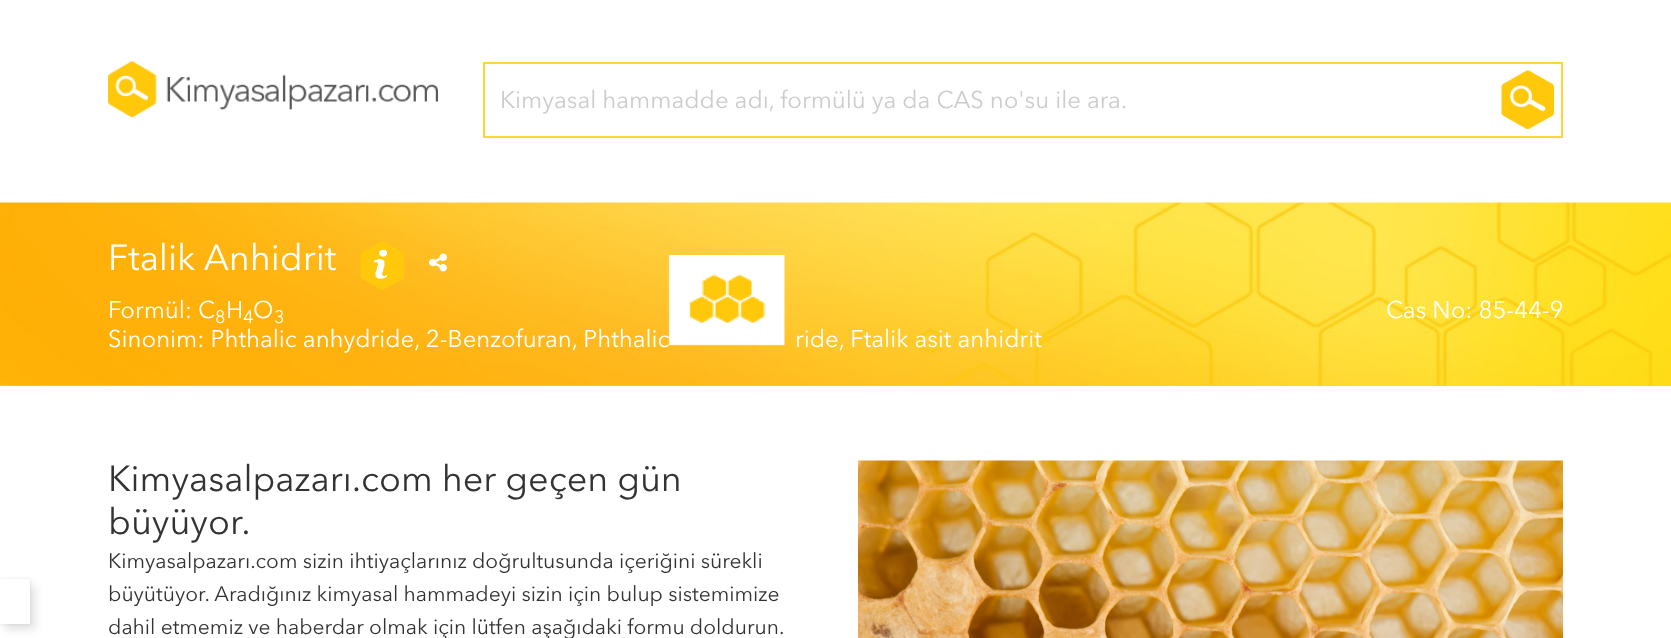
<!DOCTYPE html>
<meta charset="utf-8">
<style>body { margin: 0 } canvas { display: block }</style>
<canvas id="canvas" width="1671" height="638"></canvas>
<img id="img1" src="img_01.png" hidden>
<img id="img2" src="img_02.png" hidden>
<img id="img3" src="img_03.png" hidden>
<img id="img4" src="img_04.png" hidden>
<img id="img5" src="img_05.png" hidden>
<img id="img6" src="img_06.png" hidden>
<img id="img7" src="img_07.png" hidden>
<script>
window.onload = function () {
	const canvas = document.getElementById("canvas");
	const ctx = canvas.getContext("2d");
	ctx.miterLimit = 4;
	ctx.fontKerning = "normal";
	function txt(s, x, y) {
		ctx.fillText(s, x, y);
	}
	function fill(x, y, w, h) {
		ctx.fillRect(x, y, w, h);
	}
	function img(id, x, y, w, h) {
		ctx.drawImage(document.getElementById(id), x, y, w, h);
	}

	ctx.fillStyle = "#FFFFFF";
	fill(0, 0, 1671, 638);
	img("img1", 108, 61, 330, 56);
	ctx.strokeStyle = "#FDD835";
	ctx.lineWidth = 2;
	ctx.strokeRect(484, 63, 1078, 74);
	img("img2", 1501, 70, 53, 59);
	ctx.fillStyle = "#FDD835";
	fill(0, 385, 1671, 1);
	img("img3", 0, 202, 1671, 184);
	img("img4", 360, 241, 44, 49);
	img("img5", 429, 253, 18, 19);
	ctx.save();
	ctx.beginPath();
	ctx.moveTo(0, 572);
	ctx.lineTo(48, 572);
	ctx.lineTo(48, 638);
	ctx.lineTo(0, 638);
	ctx.closePath();
	ctx.moveTo(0, 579);
	ctx.lineTo(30, 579);
	ctx.lineTo(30, 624);
	ctx.lineTo(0, 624);
	ctx.closePath();
	ctx.clip("evenodd");
	ctx.fillStyle = "rgba(0, 0, 0, 0.11)";
	ctx.filter = "blur(4px)";
	ctx.beginPath();
	ctx.rect(5, 585, 30, 45);
	ctx.fill();
	ctx.filter = "none";
	ctx.restore();
	ctx.save();
	ctx.beginPath();
	ctx.moveTo(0, 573);
	ctx.lineTo(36, 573);
	ctx.lineTo(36, 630);
	ctx.lineTo(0, 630);
	ctx.closePath();
	ctx.moveTo(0, 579);
	ctx.lineTo(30, 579);
	ctx.lineTo(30, 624);
	ctx.lineTo(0, 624);
	ctx.closePath();
	ctx.clip("evenodd");
	ctx.fillStyle = "rgba(0, 0, 0, 0.11)";
	ctx.filter = "blur(1.5px)";
	ctx.beginPath();
	ctx.rect(0, 579, 30, 45);
	ctx.fill();
	ctx.filter = "none";
	ctx.restore();
	img("img6", 858, 460, 705, 178);
	ctx.font = "24px Avenir Next";
	ctx.fillStyle = "#CCCCCC";
	txt("Kimyasal hammadde adı, formülü ya da CAS no'su ile ara.", 500, 108);
	ctx.font = "36px Avenir Next";
	ctx.fillStyle = "#FFFFFF";
	txt("Ftalik Anhidrit", 108, 270);
	ctx.font = "24px Avenir Next";
	txt("Formül: C", 108, 318);
	ctx.font = "18px Avenir Next";
	txt("8", 215, 323);
	ctx.font = "24px Avenir Next";
	txt("H", 226, 318);
	ctx.font = "18px Avenir Next";
	txt("4", 243, 323);
	ctx.font = "24px Avenir Next";
	txt("O", 253, 318);
	ctx.font = "18px Avenir Next";
	txt("3", 274, 323);
	ctx.font = "24px Avenir Next";
	txt("Cas No: 85-44-9", 1386, 318);
	txt("Sinonim: Phthalic anhydride, 2-Benzofuran, Phthalic", 108, 347);
	txt("ride, Ftalik asit anhidrit", 795, 347);
	ctx.font = "36px Avenir Next";
	ctx.fillStyle = "#333333";
	txt("Kimyasalpazarı.com her geçen gün", 108, 491);
	txt("büyüyor.", 108, 534);
	ctx.font = "21px Avenir Next";
	txt("Kimyasalpazarı.com sizin ihtiyaçlarınız doğrultusunda içeriğini sürekli", 108, 568);
	txt("büyütüyor. Aradığınız kimyasal hammadeyi sizin için bulup sistemimize", 108, 601);
	txt("dahil etmemiz ve haberdar olmak için lütfen aşağıdaki formu doldurun.", 108, 634);
	img("img7", 668, 255, 117, 91);
};
</script>
